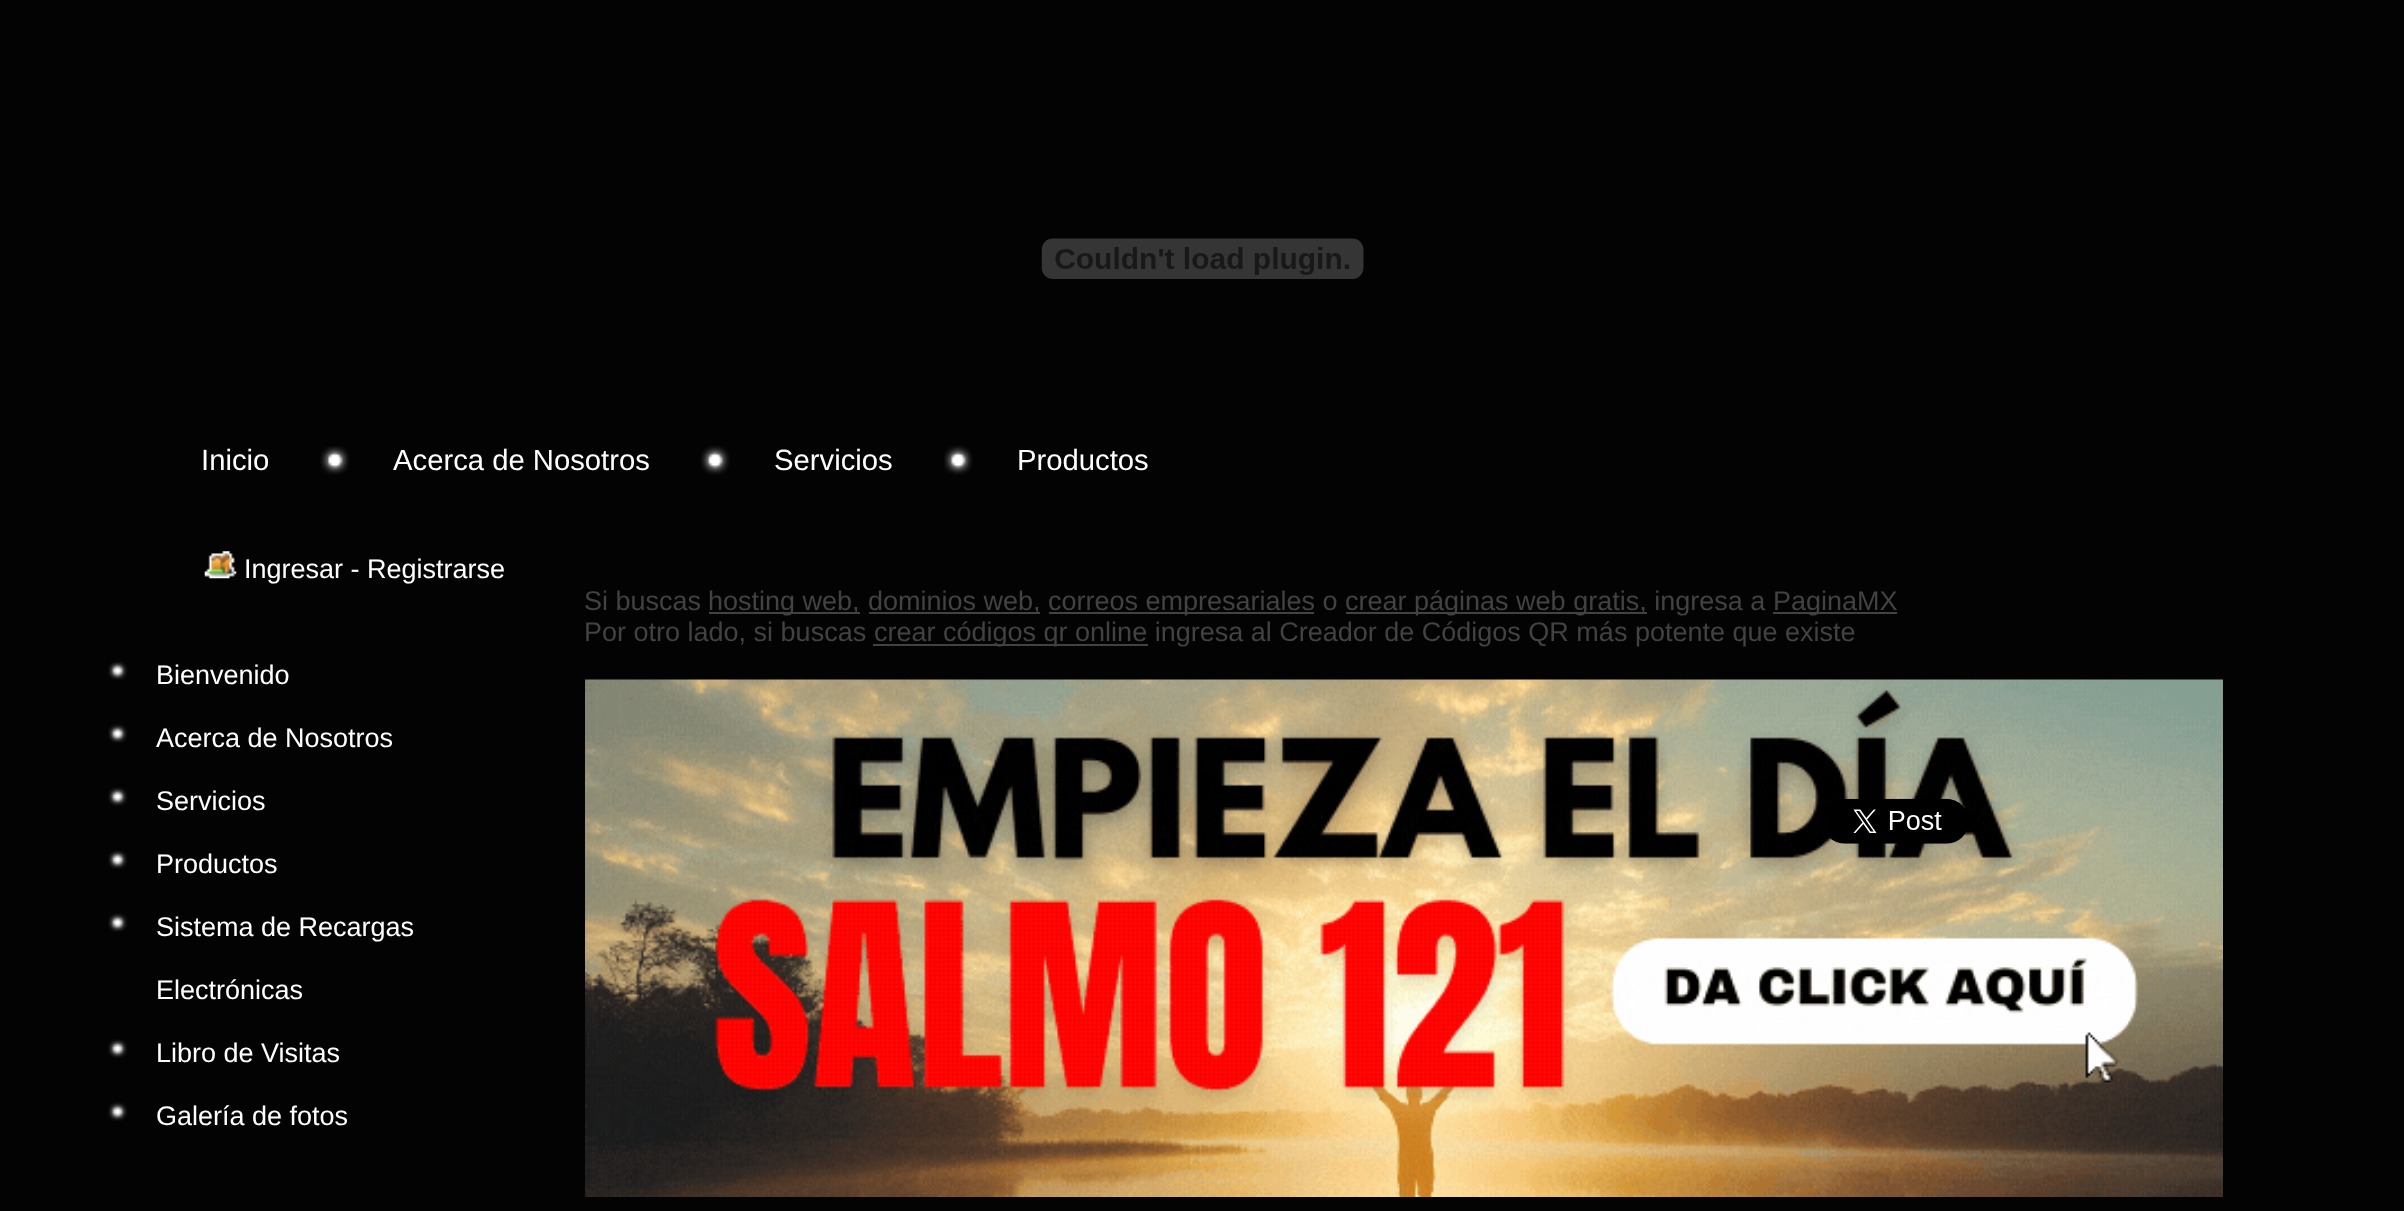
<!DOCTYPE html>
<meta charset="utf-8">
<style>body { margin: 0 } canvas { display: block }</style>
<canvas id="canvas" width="2404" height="1211"></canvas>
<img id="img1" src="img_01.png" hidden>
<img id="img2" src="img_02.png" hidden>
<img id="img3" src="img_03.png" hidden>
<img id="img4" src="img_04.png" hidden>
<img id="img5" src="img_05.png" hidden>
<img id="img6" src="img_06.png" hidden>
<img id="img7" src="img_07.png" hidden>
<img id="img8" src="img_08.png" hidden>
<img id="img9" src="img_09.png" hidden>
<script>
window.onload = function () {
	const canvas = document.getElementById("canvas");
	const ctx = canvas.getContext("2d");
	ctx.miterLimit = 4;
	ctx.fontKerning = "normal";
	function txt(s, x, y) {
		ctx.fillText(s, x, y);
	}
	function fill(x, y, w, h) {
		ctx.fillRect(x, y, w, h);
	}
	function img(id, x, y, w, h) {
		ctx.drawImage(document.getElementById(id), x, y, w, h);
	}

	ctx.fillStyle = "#030303";
	fill(0, 0, 2404, 1211);
	img("img1", 1041, 238, 323, 41);
	img("img2", 320, 446, 29, 29);
	img("img3", 701, 445, 29, 30);
	img("img4", 944, 445, 29, 30);
	img("img5", 204, 551, 33, 28);
	img("img6", 108, 661, 20, 19);
	img("img6", 108, 724, 20, 19);
	img("img6", 108, 787, 20, 19);
	img("img7", 108, 850, 20, 19);
	img("img6", 108, 913, 20, 19);
	img("img6", 108, 1039, 20, 19);
	img("img6", 108, 1102, 20, 19);
	ctx.fillStyle = "#424242";
	fill(709, 612, 151, 2);
	fill(869, 612, 171, 2);
	fill(1049, 612, 265, 2);
	fill(1346, 612, 301, 2);
	fill(1773, 612, 124, 2);
	fill(873, 644, 275, 2);
	img("img8", 585, 679, 1638, 518);
	img("img9", 1828, 798, 138, 46);
	ctx.font = "29.25px Liberation Sans";
	ctx.fillStyle = "#FFFFFF";
	txt("Inicio", 201, 470);
	txt("Acerca de Nosotros", 393, 470);
	txt("Servicios", 774, 470);
	txt("Productos", 1017, 470);
	ctx.font = "27px Liberation Sans";
	txt("Ingresar - Registrarse", 244, 578);
	txt("Bienvenido", 156, 684);
	txt("Acerca de Nosotros", 156, 747);
	txt("Servicios", 156, 810);
	txt("Productos", 156, 873);
	txt("Sistema de Recargas", 156, 936);
	txt("Electrónicas", 156, 999);
	txt("Libro de Visitas", 156, 1062);
	txt("Galería de fotos", 156, 1125);
	ctx.fillStyle = "#424242";
	txt("Si buscas", 584, 610);
	txt("hosting web,", 708, 610);
	txt("dominios web,", 868, 610);
	txt("correos empresariales o", 1048, 610);
	txt("crear páginas web gratis, ingresa a", 1345, 610);
	txt("PaginaMX", 1773, 610);
	txt("Por otro lado, si buscas", 584, 641);
	txt("crear códigos qr online ingresa al Creador de Códigos QR más potente que existe", 874, 641);
};
</script>
